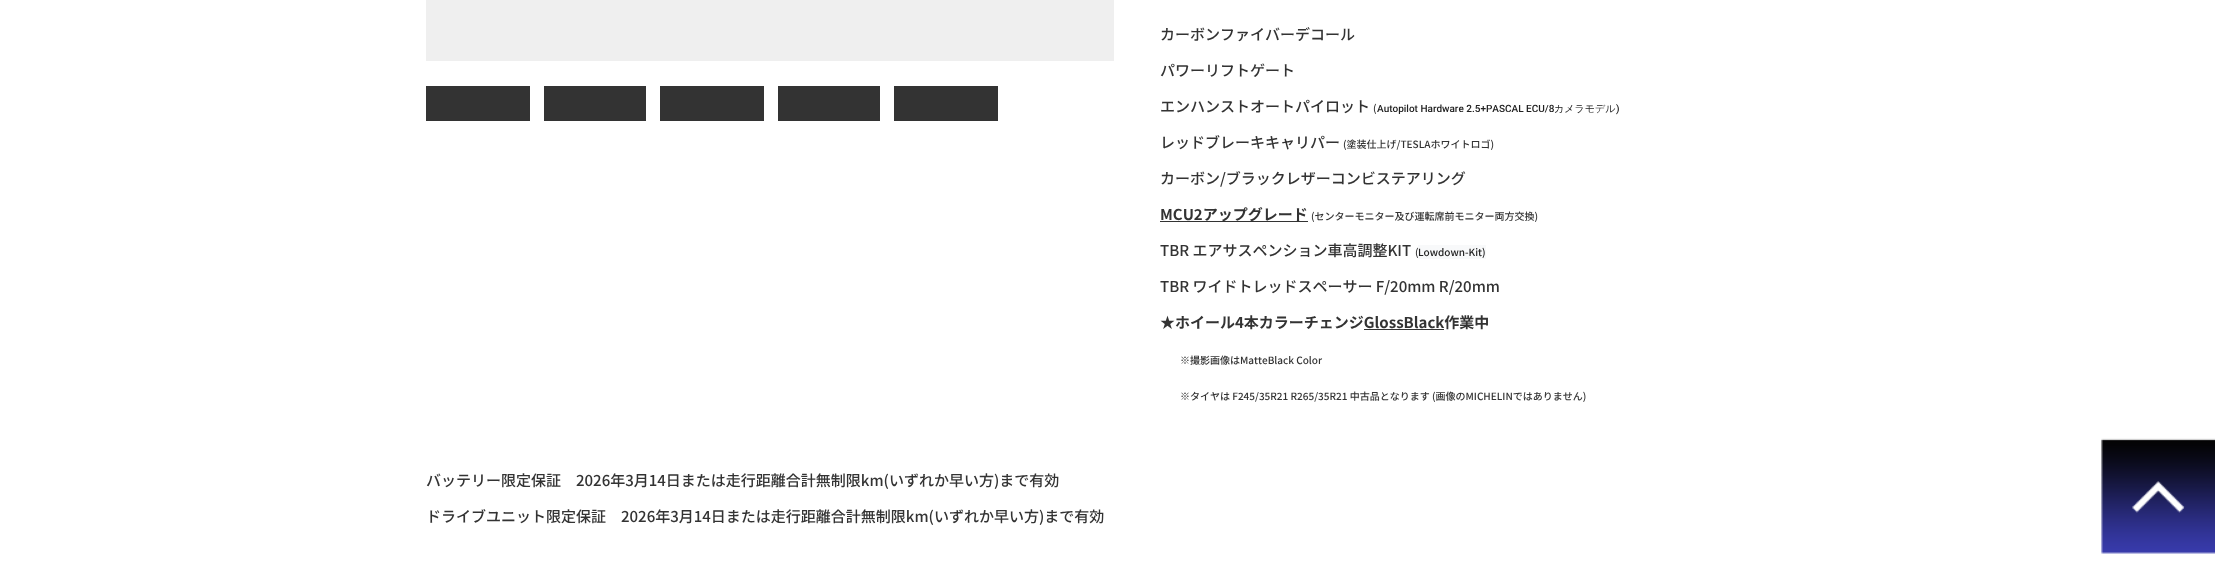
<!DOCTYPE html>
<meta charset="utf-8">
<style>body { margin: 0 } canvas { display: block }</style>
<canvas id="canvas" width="2239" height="584"></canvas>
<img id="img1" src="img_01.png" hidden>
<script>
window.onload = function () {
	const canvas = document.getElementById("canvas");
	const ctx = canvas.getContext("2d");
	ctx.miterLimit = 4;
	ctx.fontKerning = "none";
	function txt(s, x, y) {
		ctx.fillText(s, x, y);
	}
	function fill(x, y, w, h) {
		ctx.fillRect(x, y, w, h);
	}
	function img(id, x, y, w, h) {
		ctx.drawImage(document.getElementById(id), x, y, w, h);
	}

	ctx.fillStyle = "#FFFFFF";
	fill(0, 0, 2239, 584);
	ctx.fillStyle = "#EFEFEF";
	fill(426, 0, 688, 61);
	ctx.fillStyle = "#333333";
	fill(426, 86, 104, 35);
	fill(544, 86, 102, 35);
	fill(660, 86, 104, 35);
	fill(778, 86, 102, 35);
	fill(894, 86, 104, 35);
	fill(1160, 221, 148, 1);
	ctx.fillStyle = "#F8F9FA";
	fill(1418, 245, 68, 14);
	ctx.fillStyle = "#333333";
	fill(1364, 329, 80, 1);
	img("img1", 2101, 438, 114, 116);
	ctx.font = "500 15px Noto Sans JP";
	txt("カーボンファイバーデコール", 1160, 40);
	txt("パワーリフトゲート", 1160, 76);
	txt("エンハンストオートパイロット", 1160, 112);
	ctx.font = "500 10px Noto Sans JP";
	txt("(", 1373, 112);
	ctx.font = "500 10px Roboto";
	ctx.fillStyle = "#212121";
	txt("Autopilot Hardware 2.5+PASCAL ECU/8", 1377, 112);
	ctx.font = "500 10px WenQuanYi Zen Hei";
	txt("カメラモデル", 1554, 112);
	ctx.font = "500 10px Roboto";
	txt(")", 1616, 112);
	ctx.font = "500 15px Noto Sans JP";
	ctx.fillStyle = "#333333";
	txt("レッドブレーキキャリパー", 1160, 148);
	ctx.font = "500 10px Noto Sans JP";
	txt("(塗装仕上げ/TESLAホワイトロゴ)", 1343, 148);
	ctx.font = "500 15px Noto Sans JP";
	txt("カーボン/ブラックレザーコンビステアリング", 1160, 184);
	ctx.font = "bold 15px Noto Sans JP";
	txt("MCU2アップグレード", 1160, 220);
	ctx.font = "500 10px Noto Sans JP";
	txt("(センターモニター及び運転席前モニター両方交換)", 1311, 220);
	ctx.font = "500 15px Noto Sans JP";
	txt("TBR エアサスペンション車高調整KIT", 1160, 256);
	ctx.font = "500 10px Noto Sans JP";
	txt("(", 1415, 256);
	ctx.fillStyle = "#212121";
	txt("Lowdown-Kit)", 1418, 256);
	ctx.font = "500 15px Noto Sans JP";
	ctx.fillStyle = "#333333";
	txt("TBR ワイドトレッドスペーサー F/20mm R/20mm", 1160, 292);
	ctx.font = "bold 15px Noto Sans JP";
	txt("★ホイール4本カラーチェンジGlossBlack作業中", 1160, 328);
	ctx.font = "500 10px Noto Sans JP";
	txt("※撮影画像はMatteBlack Color", 1180, 364);
	txt("※タイヤは F245/35R21 R265/35R21 中古品となります (画像のMICHELINではありません)", 1180, 400);
	ctx.font = "500 15px Noto Sans JP";
	txt("バッテリー限定保証", 426, 486);
	txt("2026年3月14日または走行距離合計無制限km(いずれか早い方)まで有効", 576, 486);
	txt("ドライブユニット限定保証", 426, 522);
	txt("2026年3月14日または走行距離合計無制限km(いずれか早い方)まで有効", 621, 522);
};
</script>
